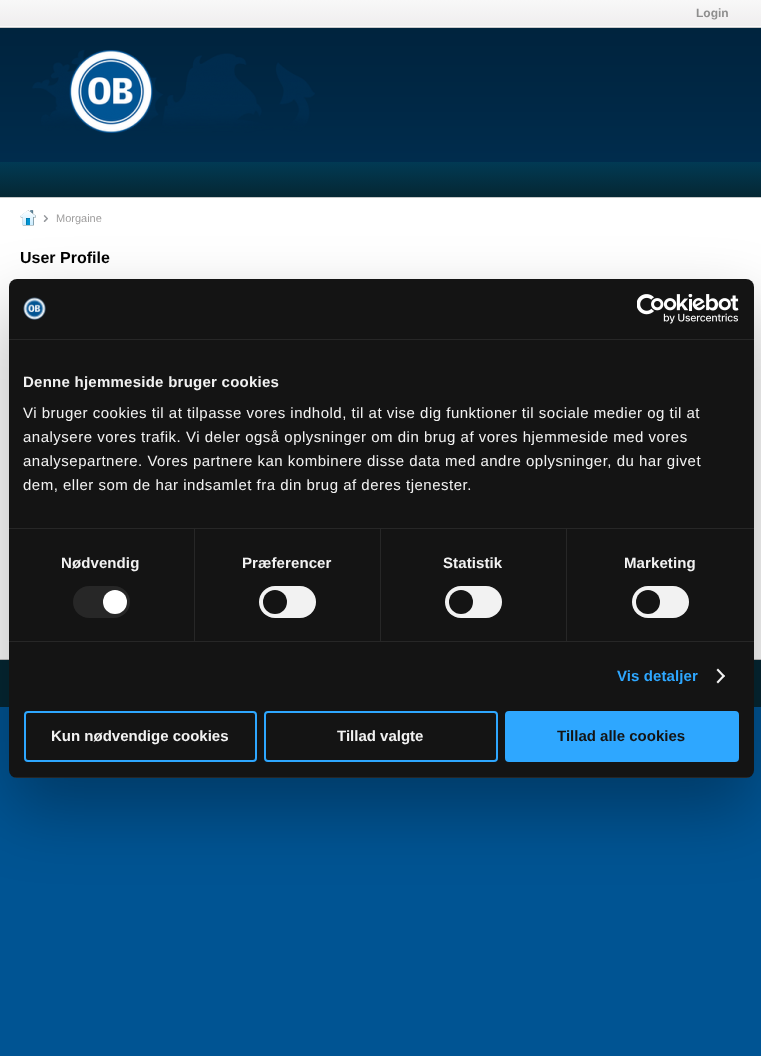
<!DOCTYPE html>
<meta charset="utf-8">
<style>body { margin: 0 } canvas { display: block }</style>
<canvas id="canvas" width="761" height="1056"></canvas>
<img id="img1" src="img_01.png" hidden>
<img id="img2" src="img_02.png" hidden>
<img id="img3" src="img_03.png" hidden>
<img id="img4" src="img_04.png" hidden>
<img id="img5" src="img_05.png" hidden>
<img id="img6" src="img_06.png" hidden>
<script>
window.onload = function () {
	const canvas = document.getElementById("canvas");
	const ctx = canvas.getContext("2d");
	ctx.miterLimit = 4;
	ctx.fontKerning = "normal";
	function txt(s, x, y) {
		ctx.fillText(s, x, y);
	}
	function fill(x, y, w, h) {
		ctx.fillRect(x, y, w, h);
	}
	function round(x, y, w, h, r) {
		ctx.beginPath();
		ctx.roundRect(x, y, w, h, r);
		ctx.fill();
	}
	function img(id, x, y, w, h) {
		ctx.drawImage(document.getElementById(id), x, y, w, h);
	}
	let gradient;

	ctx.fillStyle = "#005493";
	fill(0, 0, 761, 1056);
	img("img1", 0, 28, 761, 134);
	gradient = ctx.createLinearGradient(381, 0, 381, 28);
	gradient.addColorStop(0, "#F8F8F8");
	gradient.addColorStop(1, "#EFEDEE");
	ctx.fillStyle = gradient;
	fill(0, 0, 761, 26);
	ctx.fillStyle = "#FAFAFA";
	fill(0, 26, 761, 1);
	ctx.fillStyle = "#C7C8C9";
	fill(0, 27, 761, 1);
	img("img2", 32, 50, 283, 83);
	gradient = ctx.createLinearGradient(381, 162, 381, 197);
	gradient.addColorStop(0, "#013A54");
	gradient.addColorStop(1, "#052733");
	ctx.fillStyle = gradient;
	fill(0, 162, 761, 35);
	ctx.fillStyle = "#C4C7C8";
	fill(0, 197, 761, 1);
	ctx.fillStyle = "#FFFFFF";
	fill(0, 198, 761, 461);
	img("img3", 20, 210, 16, 16);
	img("img4", 43, 215, 5, 7);
	ctx.fillStyle = "#052733";
	fill(0, 660, 761, 47);
	ctx.fillStyle = "#C2C2C2";
	fill(0, 659, 761, 1);
	ctx.fillStyle = "rgba(0, 0, 0, 0.3)";
	ctx.filter = "blur(34px)";
	ctx.beginPath();
	ctx.roundRect(9, 311, 745, 499, 8);
	ctx.fill();
	ctx.filter = "none";
	ctx.fillStyle = "#141414";
	round(9, 279, 745, 499, 8);
	ctx.fillStyle = "#272727";
	fill(9, 339, 745, 1);
	img("img5", 23, 297, 23, 23);
	img("img6", 637, 294, 102, 30);
	fill(9, 528, 745, 1);
	fill(9, 641, 745, 1);
	fill(194, 529, 1, 112);
	round(73, 586, 57, 32, 16);
	ctx.fillStyle = "#FFFFFF";
	ctx.beginPath();
	ctx.arc(115, 602, 12, 0, Math.PI * 2);
	ctx.fill();
	ctx.fillStyle = "#272727";
	fill(380, 529, 1, 112);
	ctx.fillStyle = "#F2F2F2";
	round(259, 586, 57, 32, 16);
	ctx.fillStyle = "#141414";
	ctx.beginPath();
	ctx.arc(275, 602, 12, 0, Math.PI * 2);
	ctx.fill();
	ctx.fillStyle = "#272727";
	fill(566, 529, 1, 112);
	ctx.fillStyle = "#F2F2F2";
	round(445, 586, 57, 32, 16);
	ctx.fillStyle = "#141414";
	ctx.beginPath();
	ctx.arc(461, 602, 12, 0, Math.PI * 2);
	ctx.fill();
	ctx.fillStyle = "#F2F2F2";
	round(632, 586, 57, 32, 16);
	ctx.fillStyle = "#141414";
	ctx.beginPath();
	ctx.arc(648, 602, 12, 0, Math.PI * 2);
	ctx.fill();
	ctx.fillStyle = "#F2F2F2";
	ctx.beginPath();
	ctx.moveTo(718, 668.5);
	ctx.lineTo(725, 676);
	ctx.lineTo(723.5, 677.5);
	ctx.lineTo(716.5, 670);
	ctx.closePath();
	ctx.fill();
	ctx.beginPath();
	ctx.moveTo(723.5, 674.5);
	ctx.lineTo(725, 676);
	ctx.lineTo(718, 683.5);
	ctx.lineTo(716.5, 682);
	ctx.closePath();
	ctx.fill();
	ctx.save();
	ctx.beginPath();
	ctx.roundRect(9, 279, 745, 499, 8);
	ctx.clip();
	ctx.fillStyle = "rgba(255, 255, 255, 0.08)";
	fill(9, 777, 745, 1);
	ctx.restore();
	ctx.beginPath();
	ctx.roundRect(25, 712, 231, 49, 3);
	ctx.strokeStyle = "#2EA7FF";
	ctx.lineWidth = 2;
	ctx.stroke();
	ctx.beginPath();
	ctx.roundRect(265, 712, 232, 49, 3);
	ctx.stroke();
	ctx.fillStyle = "#2EA7FF";
	ctx.beginPath();
	ctx.roundRect(506, 712, 232, 49, 3);
	ctx.fill();
	ctx.stroke();
	ctx.font = "bold 12px Liberation Sans";
	ctx.fillStyle = "#8E8E8E";
	txt("Login", 696, 17);
	ctx.font = "11px Liberation Sans";
	ctx.fillStyle = "#9E9D9D";
	txt("Morgaine", 56, 222);
	ctx.font = "bold 16px Liberation Sans";
	ctx.fillStyle = "#000000";
	txt("User Profile", 20, 263);
	ctx.letterSpacing = "0.25px";
	ctx.font = "bold 15px Liberation Sans";
	ctx.fillStyle = "#F2F2F2";
	txt("Denne hjemmeside bruger cookies", 23, 387);
	ctx.letterSpacing = "0.5px";
	ctx.font = "15px Liberation Sans";
	txt("Vi bruger cookies til at tilpasse vores indhold, til at vise dig funktioner til sociale medier og til at", 23, 418);
	txt("analysere vores trafik. Vi deler også oplysninger om din brug af vores hjemmeside med vores", 23, 442);
	txt("analysepartnere. Vores partnere kan kombinere disse data med andre oplysninger, du har givet", 23, 466);
	txt("dem, eller som de har indsamlet fra din brug af deres tjenester.", 23, 490);
	ctx.letterSpacing = "0.1px";
	ctx.font = "bold 15px Liberation Sans";
	txt("Nødvendig", 61, 568);
	txt("Præferencer", 242, 568);
	txt("Statistik", 443, 568);
	txt("Marketing", 624, 568);
	ctx.fillStyle = "#2EA7FF";
	txt("Vis detaljer", 617, 681);
	ctx.letterSpacing = "0px";
	ctx.fillStyle = "#F2F2F2";
	txt("Kun nødvendige cookies", 51, 741);
	txt("Tillad valgte", 337, 741);
	ctx.fillStyle = "#141414";
	txt("Tillad alle cookies", 557, 741);
};
</script>
